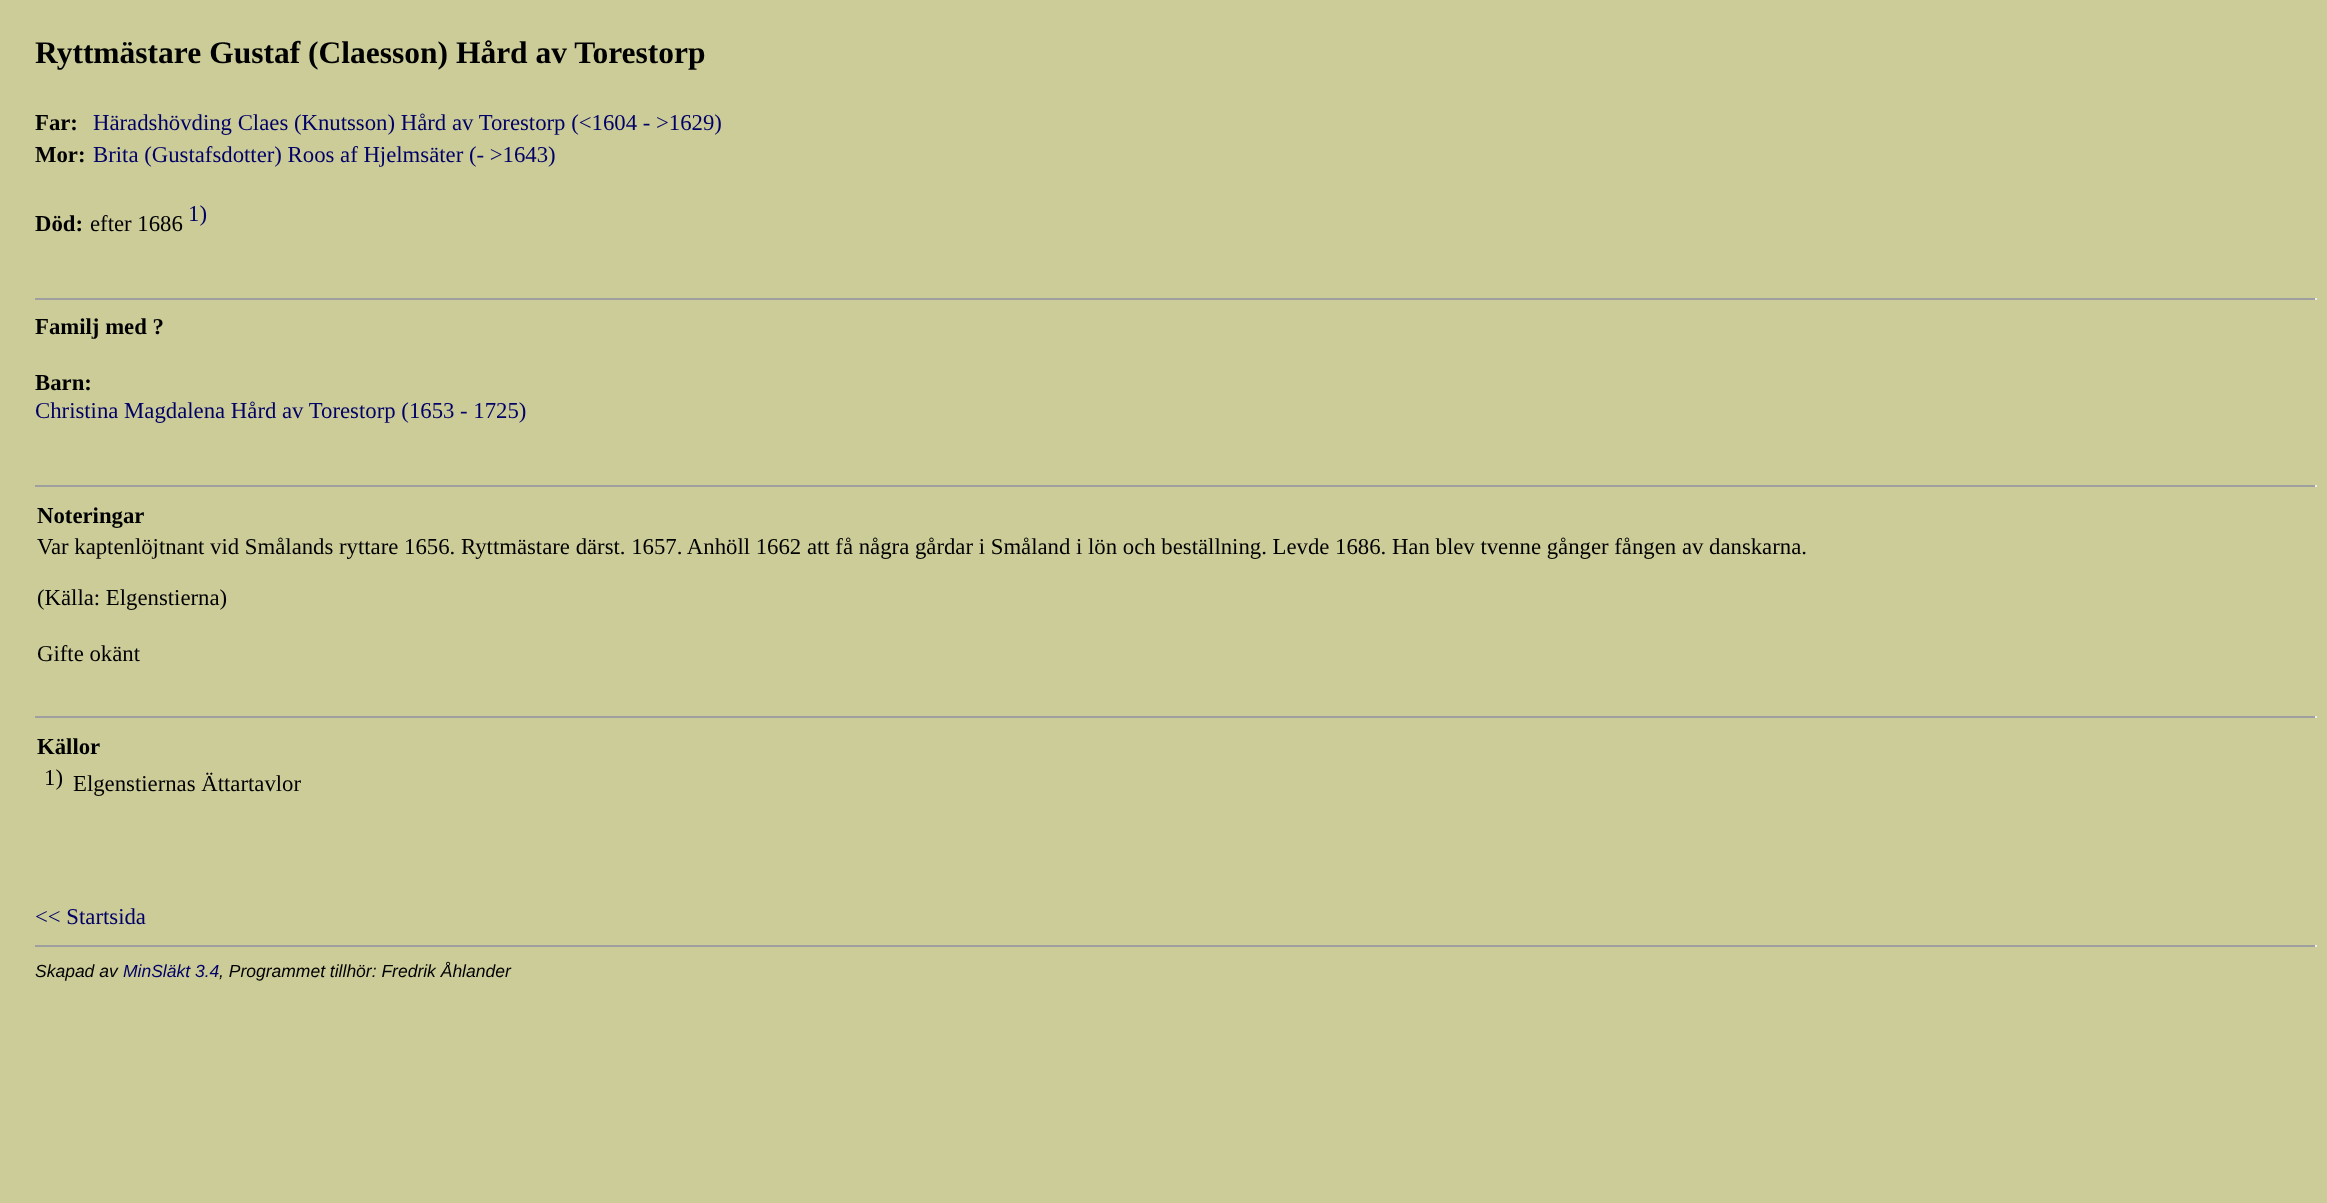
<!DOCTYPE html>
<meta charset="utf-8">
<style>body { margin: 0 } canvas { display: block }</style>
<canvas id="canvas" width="2327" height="1203"></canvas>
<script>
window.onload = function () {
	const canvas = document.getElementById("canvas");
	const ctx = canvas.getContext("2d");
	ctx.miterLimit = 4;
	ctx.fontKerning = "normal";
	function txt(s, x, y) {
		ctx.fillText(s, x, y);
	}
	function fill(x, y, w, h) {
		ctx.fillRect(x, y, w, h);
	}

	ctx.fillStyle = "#CCCC99";
	fill(0, 0, 2327, 1203);
	ctx.fillStyle = "#9F9F9F";
	fill(35, 298, 2282, 2);
	ctx.fillStyle = "#EEEEEE";
	fill(2315, 298, 2, 2);
	ctx.fillStyle = "#9F9F9F";
	fill(35, 485, 2282, 2);
	ctx.fillStyle = "#EEEEEE";
	fill(2315, 485, 2, 2);
	ctx.fillStyle = "#9F9F9F";
	fill(35, 716, 2282, 2);
	ctx.fillStyle = "#EEEEEE";
	fill(2315, 716, 2, 2);
	ctx.fillStyle = "#9F9F9F";
	fill(35, 945, 2282, 2);
	ctx.fillStyle = "#EEEEEE";
	fill(2315, 945, 2, 2);
	ctx.font = "bold 31.5px Liberation Serif";
	ctx.fillStyle = "#000000";
	txt("Ryttmästare Gustaf (Claesson) Hård av Torestorp", 35, 63);
	ctx.font = "bold 22.75px Liberation Serif";
	txt("Far:", 35, 130);
	ctx.font = "22.75px Liberation Serif";
	ctx.fillStyle = "#000066";
	txt("Häradshövding Claes (Knutsson) Hård av Torestorp (<1604 - >1629)", 93, 130);
	ctx.font = "bold 22.75px Liberation Serif";
	ctx.fillStyle = "#000000";
	txt("Mor:", 35, 162);
	ctx.font = "22.75px Liberation Serif";
	ctx.fillStyle = "#000066";
	txt("Brita (Gustafsdotter) Roos af Hjelmsäter (- >1643)", 93, 162);
	ctx.font = "bold 22.75px Liberation Serif";
	ctx.fillStyle = "#000000";
	txt("Död:", 35, 231);
	ctx.font = "22.75px Liberation Serif";
	txt("efter 1686", 90, 231);
	ctx.fillStyle = "#000066";
	txt("1)", 188, 221);
	ctx.font = "bold 22.75px Liberation Serif";
	ctx.fillStyle = "#000000";
	txt("Familj med ?", 35, 334);
	txt("Barn:", 35, 390);
	ctx.font = "22.75px Liberation Serif";
	ctx.fillStyle = "#000066";
	txt("Christina Magdalena Hård av Torestorp (1653 - 1725)", 35, 418);
	ctx.font = "bold 22.75px Liberation Serif";
	ctx.fillStyle = "#000000";
	txt("Noteringar", 37, 523);
	ctx.font = "22.75px Liberation Serif";
	txt("Var kaptenlöjtnant vid Smålands ryttare 1656. Ryttmästare därst. 1657. Anhöll 1662 att få några gårdar i Småland i lön och beställning. Levde 1686. Han blev tvenne gånger fången av danskarna.", 37, 554);
	txt("(Källa: Elgenstierna)", 37, 605);
	txt("Gifte okänt", 37, 661);
	ctx.font = "bold 22.75px Liberation Serif";
	txt("Källor", 37, 754);
	ctx.font = "22.75px Liberation Serif";
	txt("1)", 44, 785);
	txt("Elgenstiernas Ättartavlor", 73, 791);
	ctx.fillStyle = "#000066";
	txt("<< Startsida", 35, 924);
	ctx.font = "italic 17.5px Liberation Sans";
	ctx.fillStyle = "#000000";
	txt("Skapad av", 35, 977);
	ctx.fillStyle = "#000066";
	txt("MinSläkt 3.4", 123, 977);
	ctx.fillStyle = "#000000";
	txt(", Programmet tillhör: Fredrik Åhlander", 219, 977);
};
</script>
